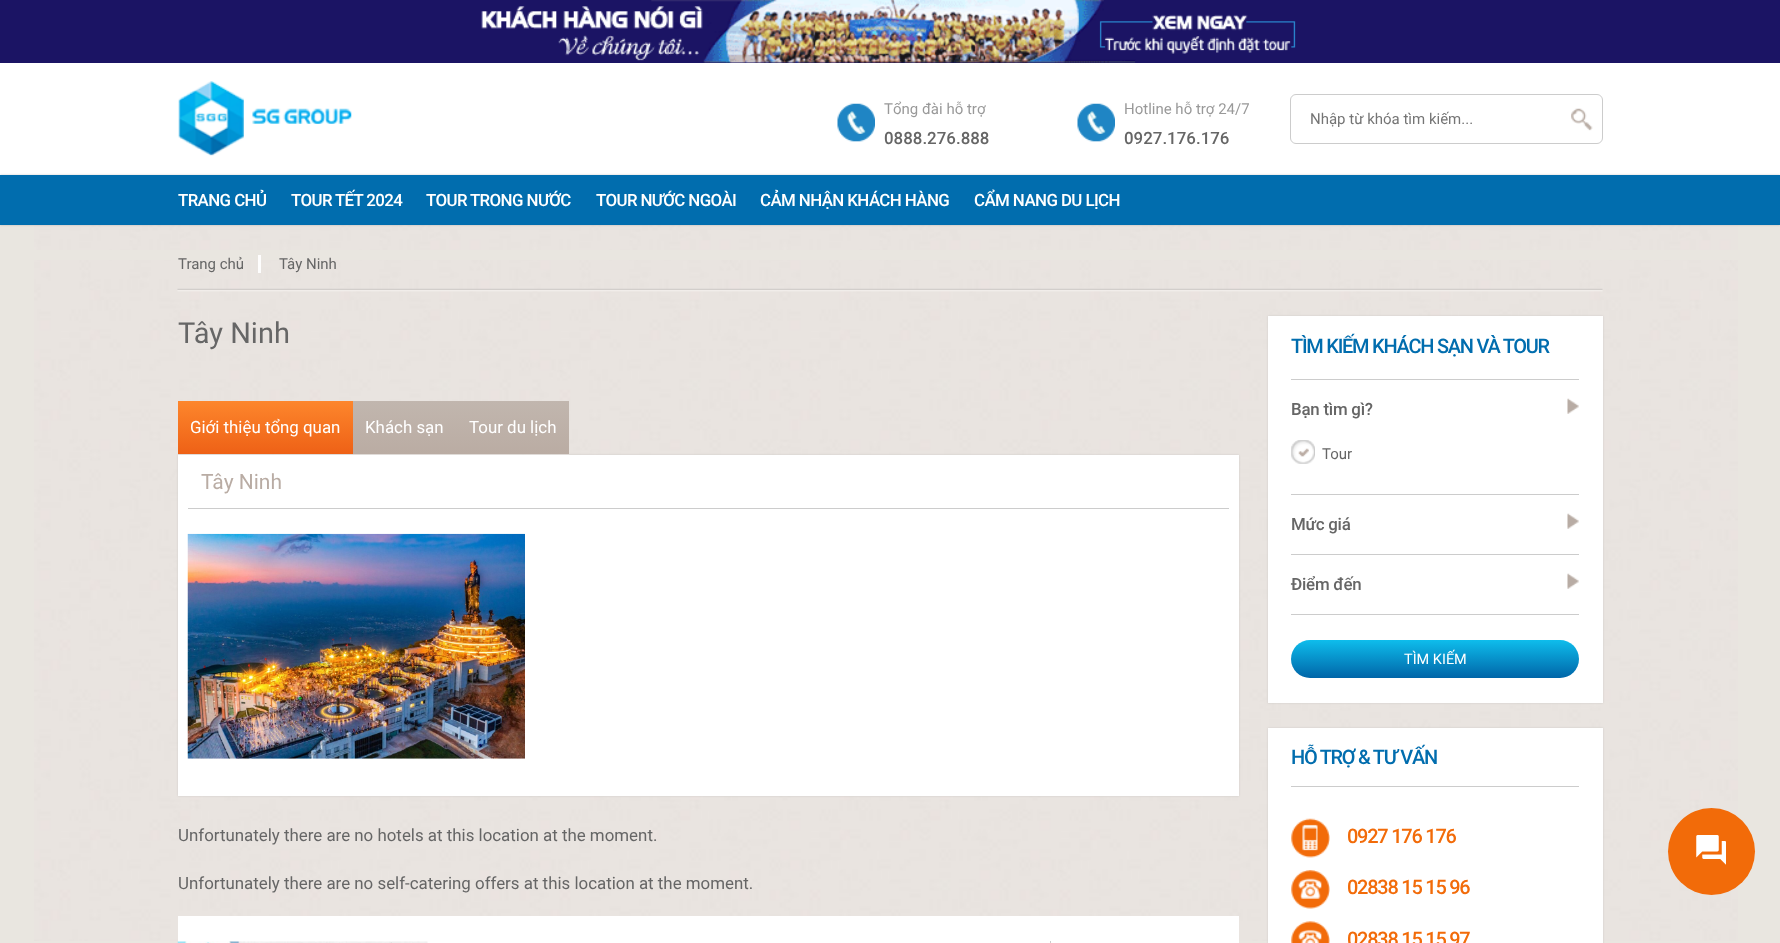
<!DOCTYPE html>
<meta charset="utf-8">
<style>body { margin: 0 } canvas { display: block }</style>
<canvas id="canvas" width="1780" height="943"></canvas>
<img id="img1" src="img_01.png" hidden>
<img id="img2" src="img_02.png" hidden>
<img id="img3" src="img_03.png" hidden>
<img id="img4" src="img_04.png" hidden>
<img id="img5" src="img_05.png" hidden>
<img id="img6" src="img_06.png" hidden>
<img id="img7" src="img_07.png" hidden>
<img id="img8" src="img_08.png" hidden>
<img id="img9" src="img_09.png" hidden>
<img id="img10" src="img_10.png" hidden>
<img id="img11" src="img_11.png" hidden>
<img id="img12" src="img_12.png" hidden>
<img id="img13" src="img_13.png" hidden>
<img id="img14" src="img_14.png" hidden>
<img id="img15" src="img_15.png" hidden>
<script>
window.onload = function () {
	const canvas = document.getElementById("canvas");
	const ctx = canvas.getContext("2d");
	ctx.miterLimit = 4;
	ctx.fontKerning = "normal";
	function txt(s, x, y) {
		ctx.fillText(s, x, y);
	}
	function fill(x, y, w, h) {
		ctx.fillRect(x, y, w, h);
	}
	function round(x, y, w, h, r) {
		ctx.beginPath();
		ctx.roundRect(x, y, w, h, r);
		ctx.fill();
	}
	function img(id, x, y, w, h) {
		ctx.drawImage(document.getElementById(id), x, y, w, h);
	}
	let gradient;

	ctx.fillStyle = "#E9E6E0";
	fill(0, 0, 1780, 943);
	img("img1", 34, 225, 1704, 25);
	ctx.fillStyle = "#FFFFFF";
	fill(0, 63, 1780, 112);
	ctx.fillStyle = "#1B1464";
	fill(0, 0, 1780, 63);
	img("img2", 481, 0, 815, 63);
	img("img3", 178, 81, 174, 75);
	img("img4", 837, 103, 38, 39);
	img("img4", 1077, 103, 38, 39);
	ctx.beginPath();
	ctx.roundRect(1290.5, 94.5, 312, 49, 5.5);
	ctx.strokeStyle = "#CCCCCC";
	ctx.stroke();
	img("img5", 1571, 108, 22, 23);
	ctx.fillStyle = "rgba(0, 0, 0, 0.2)";
	ctx.filter = "blur(1px)";
	ctx.beginPath();
	ctx.rect(0, 175, 1780, 50);
	ctx.fill();
	ctx.filter = "none";
	ctx.fillStyle = "#016DAE";
	fill(0, 175, 1780, 50);
	img("img6", 34, 260, 1704, 681);
	img("img7", 177, 288, 1426, 4);
	ctx.fillStyle = "rgba(254, 254, 254, 0.96)";
	fill(258, 255, 3, 18);
	ctx.fillStyle = "rgba(0, 0, 0, 0.1)";
	ctx.filter = "blur(1px)";
	ctx.beginPath();
	ctx.rect(178, 455, 1061, 341);
	ctx.fill();
	ctx.filter = "none";
	gradient = ctx.createLinearGradient(265, 401, 265, 454);
	gradient.addColorStop(0, "#FD862C");
	gradient.addColorStop(1, "#EE6116");
	ctx.fillStyle = gradient;
	fill(178, 401, 175, 53);
	gradient = ctx.createLinearGradient(404, 401, 404, 454);
	gradient.addColorStop(0, "#C1B6AE");
	gradient.addColorStop(1, "#BAACA3");
	ctx.fillStyle = gradient;
	fill(353, 401, 103, 53);
	gradient = ctx.createLinearGradient(513, 401, 513, 454);
	gradient.addColorStop(0, "#C1B6AE");
	gradient.addColorStop(1, "#BAACA3");
	ctx.fillStyle = gradient;
	fill(456, 401, 113, 53);
	ctx.fillStyle = "#FFFFFF";
	fill(178, 455, 1061, 341);
	ctx.fillStyle = "#CCCCCC";
	fill(188, 508, 1041, 1);
	img("img8", 187, 533, 338, 226);
	ctx.fillStyle = "#FFFFFF";
	fill(178, 916, 1061, 27);
	img("img9", 177, 941, 251, 2);
	ctx.fillStyle = "#CCCCCC";
	fill(1050, 941, 1, 2);
	ctx.fillStyle = "rgba(0, 0, 0, 0.1)";
	ctx.filter = "blur(1px)";
	ctx.beginPath();
	ctx.rect(1268, 316, 335, 387);
	ctx.fill();
	ctx.filter = "none";
	ctx.fillStyle = "#FFFFFF";
	fill(1268, 316, 335, 387);
	ctx.fillStyle = "#CCCCCC";
	fill(1291, 614, 288, 1);
	img("img10", 1567, 398, 12, 16);
	fill(1291, 379, 288, 1);
	img("img11", 1291, 440, 24, 24);
	img("img10", 1567, 513, 12, 16);
	fill(1291, 494, 288, 1);
	img("img10", 1567, 573, 12, 16);
	fill(1291, 554, 288, 1);
	gradient = ctx.createLinearGradient(1435, 640, 1435, 678);
	gradient.addColorStop(0, "#0EBDEC");
	gradient.addColorStop(1, "#0065A8");
	ctx.fillStyle = gradient;
	round(1291, 640, 288, 38, 19);
	ctx.fillStyle = "rgba(0, 0, 0, 0.1)";
	ctx.filter = "blur(1px)";
	ctx.beginPath();
	ctx.rect(1268, 728, 335, 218);
	ctx.fill();
	ctx.filter = "none";
	ctx.fillStyle = "#FFFFFF";
	fill(1268, 728, 335, 215);
	ctx.fillStyle = "#CCCCCC";
	fill(1291, 786, 288, 1);
	img("img12", 1291, 818, 39, 40);
	img("img13", 1291, 870, 39, 39);
	img("img14", 1291, 921, 39, 22);
	ctx.fillStyle = "#F26B09";
	ctx.beginPath();
	ctx.arc(1711.5, 851.5, 43.5, 0, Math.PI * 2);
	ctx.fill();
	img("img15", 1696, 835, 30, 30);
	ctx.font = "15px Roboto";
	ctx.fillStyle = "#999999";
	txt("Tổng đài hỗ trợ", 884, 114);
	ctx.font = "500 16.9px Roboto";
	ctx.fillStyle = "#666666";
	txt("0888.276.888", 884, 144);
	ctx.font = "15px Roboto";
	ctx.fillStyle = "#999999";
	txt("Hotline hỗ trợ 24/7", 1124, 114);
	ctx.font = "500 16.9px Roboto";
	ctx.fillStyle = "#666666";
	txt("0927.176.176", 1124, 144);
	ctx.font = "15px Roboto";
	ctx.fillStyle = "#757575";
	txt("Nhập từ khóa tìm kiếm...", 1310, 124);
	ctx.letterSpacing = "-0.6px";
	ctx.font = "500 16.9px Roboto";
	ctx.fillStyle = "#FFFFFF";
	txt("TRANG CHỦ", 178, 206);
	txt("TOUR TẾT 2024", 291, 206);
	txt("TOUR TRONG NƯỚC", 426, 206);
	txt("TOUR NƯỚC NGOÀI", 596, 206);
	txt("CẢM NHẬN KHÁCH HÀNG", 760, 206);
	txt("CẨM NANG DU LỊCH", 974, 206);
	ctx.letterSpacing = "0px";
	ctx.font = "15px Roboto";
	ctx.fillStyle = "#666666";
	txt("Trang chủ", 178, 269);
	txt("Tây Ninh", 279, 269);
	ctx.font = "29px Roboto";
	txt("Tây Ninh", 178, 343);
	ctx.font = "16.9px Roboto";
	ctx.fillStyle = "#FFFFFF";
	txt("Giới thiệu tổng quan", 190, 433);
	txt("Khách sạn", 365, 433);
	txt("Tour du lịch", 469, 433);
	ctx.font = "21px Roboto";
	ctx.fillStyle = "#B9ACA4";
	txt("Tây Ninh", 201, 489);
	ctx.font = "16.9px Roboto";
	ctx.fillStyle = "#666666";
	txt("Unfortunately there are no hotels at this location at the moment.", 178, 841);
	txt("Unfortunately there are no self-catering offers at this location at the moment.", 178, 889);
	ctx.letterSpacing = "-1.25px";
	ctx.font = "500 20px Roboto";
	ctx.fillStyle = "#016DAE";
	txt("TÌM KIẾM KHÁCH SẠN VÀ TOUR", 1291, 353);
	ctx.letterSpacing = "-0.25px";
	ctx.font = "500 16.9px Roboto";
	ctx.fillStyle = "#666666";
	txt("Bạn tìm gì?", 1291, 415);
	ctx.letterSpacing = "0px";
	ctx.font = "15px Roboto";
	txt("Tour", 1322, 459);
	ctx.letterSpacing = "-0.25px";
	ctx.font = "500 16.9px Roboto";
	txt("Mức giá", 1291, 530);
	txt("Điểm đến", 1291, 590);
	ctx.letterSpacing = "0px";
	ctx.font = "14.5px Roboto";
	ctx.fillStyle = "#FFFFFF";
	txt("TÌM KIẾM", 1404, 664);
	ctx.letterSpacing = "-1.25px";
	ctx.font = "500 20px Roboto";
	ctx.fillStyle = "#016DAE";
	txt("HỖ TRỢ & TƯ VẤN", 1291, 764);
	ctx.fillStyle = "#F26B09";
	txt("0927 176 176", 1347, 843);
	txt("02838 15 15 96", 1347, 894);
	txt("02838 15 15 97", 1347, 946);
};
</script>
